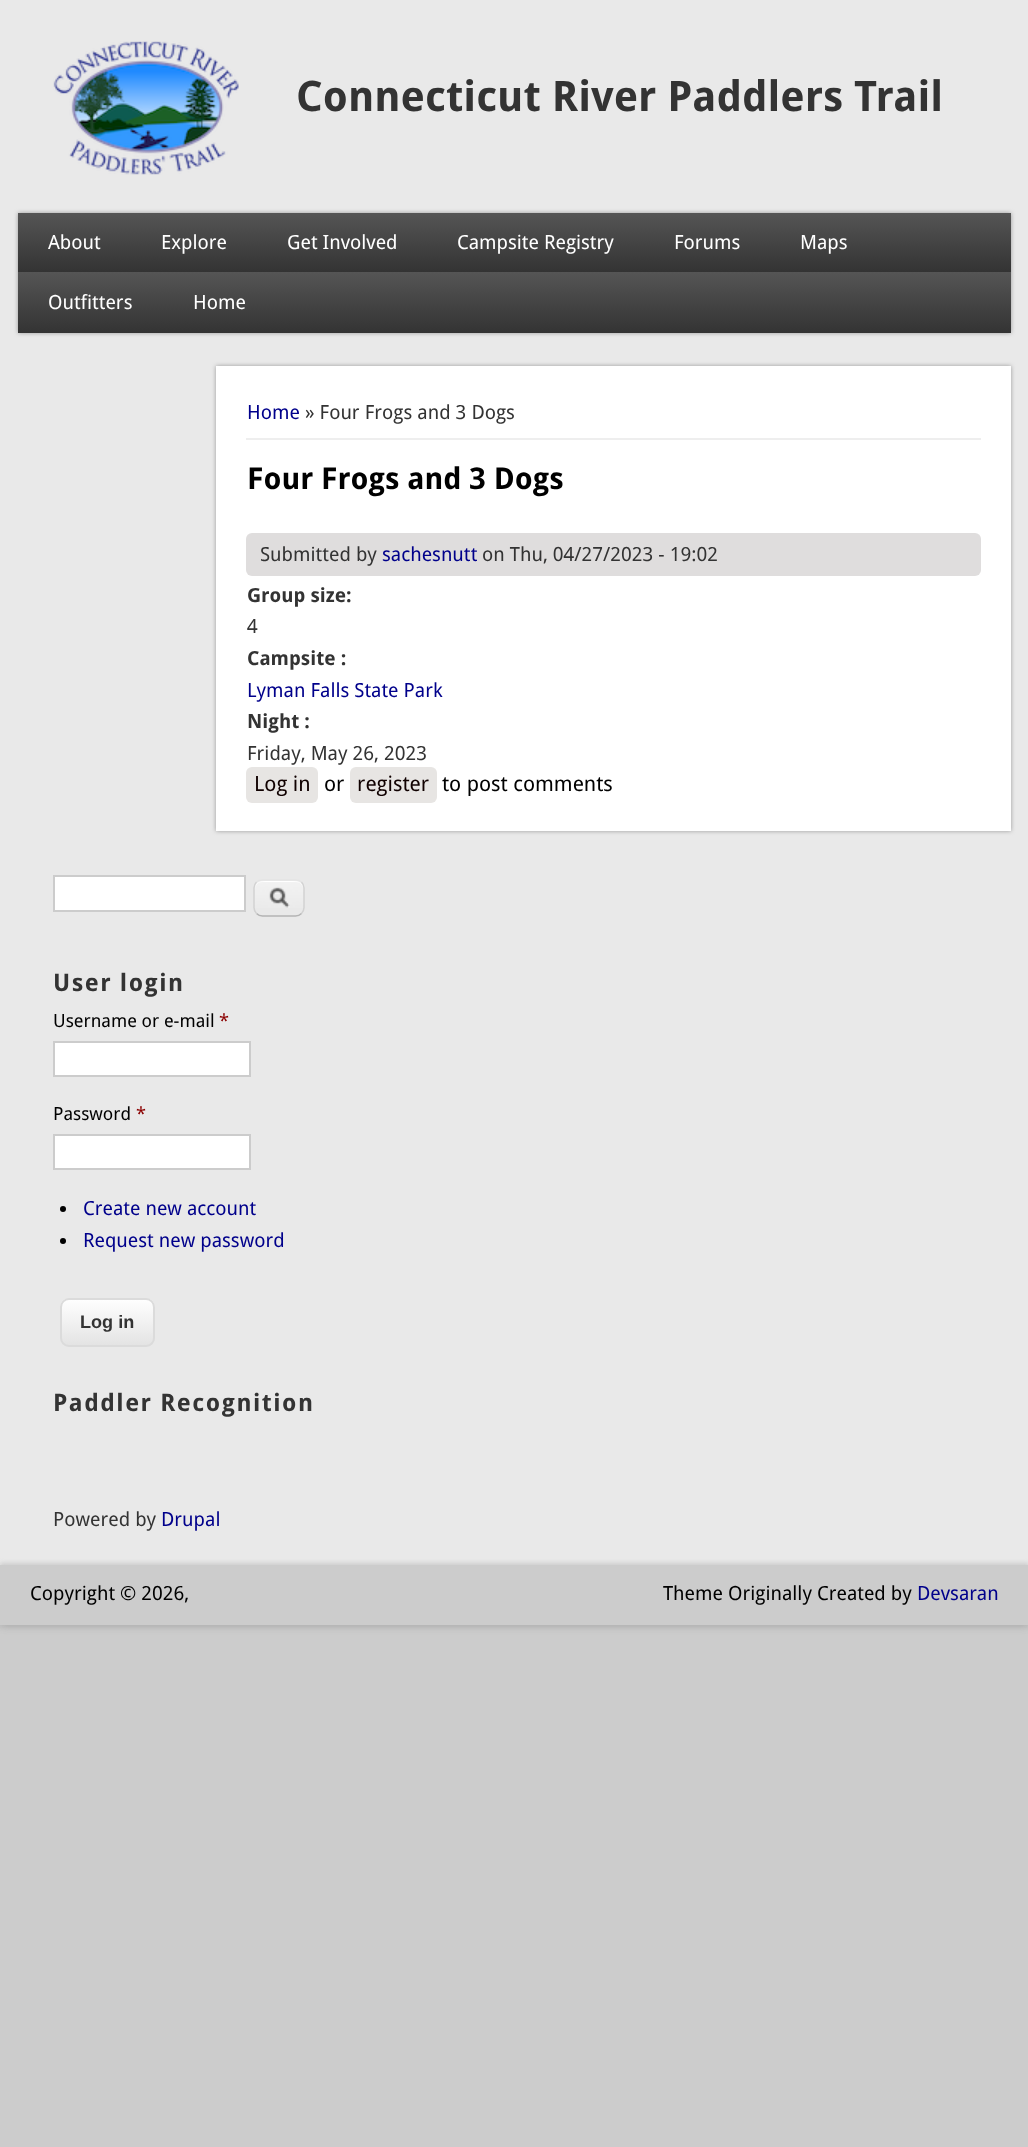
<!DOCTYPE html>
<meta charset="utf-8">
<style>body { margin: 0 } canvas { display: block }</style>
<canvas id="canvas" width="1028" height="2147"></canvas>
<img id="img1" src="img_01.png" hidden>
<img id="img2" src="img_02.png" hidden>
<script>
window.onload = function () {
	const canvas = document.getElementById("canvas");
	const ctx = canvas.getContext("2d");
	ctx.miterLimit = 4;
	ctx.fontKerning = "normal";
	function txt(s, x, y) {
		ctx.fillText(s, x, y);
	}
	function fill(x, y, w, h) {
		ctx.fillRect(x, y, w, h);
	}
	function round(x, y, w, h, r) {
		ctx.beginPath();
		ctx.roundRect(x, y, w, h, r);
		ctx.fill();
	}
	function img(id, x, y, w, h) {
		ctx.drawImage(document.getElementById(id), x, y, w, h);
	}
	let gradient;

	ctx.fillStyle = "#CCCCCC";
	fill(0, 0, 1028, 2147);
	ctx.fillStyle = "#999999";
	ctx.filter = "blur(4.5px)";
	ctx.beginPath();
	ctx.rect(0, 0, 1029, 1625);
	ctx.fill();
	ctx.filter = "none";
	ctx.fillStyle = "#E9E9E9";
	fill(0, 0, 1028, 1565);
	img("img1", 53, 41, 186, 134);
	ctx.fillStyle = "#999999";
	ctx.filter = "blur(2px)";
	ctx.beginPath();
	ctx.rect(18, 213, 993, 120);
	ctx.fill();
	ctx.filter = "none";
	gradient = ctx.createLinearGradient(515, 213, 515, 393);
	gradient.addColorStop(0, "#555555");
	gradient.addColorStop(0.33, "#333333");
	gradient.addColorStop(0.33, "#555555");
	gradient.addColorStop(0.67, "#333333");
	gradient.addColorStop(0.67, "#555555");
	gradient.addColorStop(1, "#333333");
	ctx.fillStyle = gradient;
	fill(18, 213, 993, 120);
	ctx.fillStyle = "#999999";
	ctx.filter = "blur(2px)";
	ctx.beginPath();
	ctx.rect(216, 366, 795, 465);
	ctx.fill();
	ctx.filter = "none";
	ctx.fillStyle = "#FFFFFF";
	fill(216, 366, 795, 465);
	ctx.fillStyle = "#EEEEEE";
	fill(246, 438, 735, 2);
	ctx.fillStyle = "#DFDDDD";
	round(246, 533, 735, 43, 6);
	ctx.fillStyle = "#E7E5E3";
	round(246, 767, 72, 36, 6);
	round(350, 767, 87, 36, 6);
	ctx.fillStyle = "#FFFFFF";
	ctx.beginPath();
	ctx.rect(54, 876, 191, 35);
	ctx.fill();
	ctx.strokeStyle = "#CCCCCC";
	ctx.lineWidth = 2;
	ctx.stroke();
	img("img2", 254, 880, 50, 28);
	ctx.beginPath();
	ctx.moveTo(262, 882);
	ctx.lineTo(296, 882);
	ctx.bezierCurveTo(300, 882, 303, 885, 303, 890);
	ctx.bezierCurveTo(303, 881, 297, 881, 290, 881);
	ctx.lineTo(268, 881);
	ctx.bezierCurveTo(261, 881, 255, 881, 255, 890);
	ctx.bezierCurveTo(255, 885, 258, 882, 262, 882);
	ctx.closePath();
	ctx.fill();
	ctx.beginPath();
	ctx.moveTo(256.5, 882);
	ctx.bezierCurveTo(258, 880.5, 260.5, 880, 262.5, 880);
	ctx.lineTo(295.5, 880);
	ctx.bezierCurveTo(297.5, 880, 300, 880.5, 301.5, 882);
	ctx.strokeStyle = "#E4E4E4";
	ctx.lineWidth = 1.5;
	ctx.stroke();
	ctx.beginPath();
	ctx.moveTo(301.5, 882);
	ctx.bezierCurveTo(303, 883.5, 304, 886, 304, 888);
	ctx.lineTo(304, 907.5);
	ctx.bezierCurveTo(304, 909.5, 303, 912, 301.5, 913.5);
	ctx.strokeStyle = "#D2D2D2";
	ctx.stroke();
	ctx.beginPath();
	ctx.moveTo(301.5, 913.5);
	ctx.bezierCurveTo(300, 915, 297.5, 916, 295.5, 916);
	ctx.lineTo(262.5, 916);
	ctx.bezierCurveTo(260.5, 916, 258, 915, 256.5, 913.5);
	ctx.strokeStyle = "#B4B4B4";
	ctx.stroke();
	ctx.beginPath();
	ctx.moveTo(256.5, 913.5);
	ctx.bezierCurveTo(255, 912, 254, 909.5, 254, 907.5);
	ctx.lineTo(254, 888);
	ctx.bezierCurveTo(254, 886, 255, 883.5, 256.5, 882);
	ctx.strokeStyle = "#D2D2D2";
	ctx.stroke();
	ctx.beginPath();
	ctx.rect(54, 1042, 196, 34);
	ctx.fill();
	ctx.strokeStyle = "#CCCCCC";
	ctx.lineWidth = 2;
	ctx.stroke();
	ctx.beginPath();
	ctx.rect(54, 1135, 196, 34);
	ctx.fill();
	ctx.stroke();
	ctx.fillStyle = "#000000";
	ctx.beginPath();
	ctx.arc(63, 1209, 3, 0, Math.PI * 2);
	ctx.fill();
	ctx.beginPath();
	ctx.arc(63, 1241, 3, 0, Math.PI * 2);
	ctx.fill();
	ctx.save();
	ctx.beginPath();
	ctx.roundRect(60, 1298, 95, 49, 9);
	ctx.clip();
	gradient = ctx.createLinearGradient(107, 1299, 107, 1346);
	gradient.addColorStop(0, "#FFFFFF");
	gradient.addColorStop(1, "#E3E3E3");
	ctx.fillStyle = gradient;
	fill(60, 1299, 95, 47);
	ctx.restore();
	ctx.fillStyle = "#FFFFFF";
	ctx.beginPath();
	ctx.moveTo(69, 1300);
	ctx.lineTo(146, 1300);
	ctx.bezierCurveTo(150, 1300, 153, 1304, 153, 1308);
	ctx.bezierCurveTo(153, 1296, 141, 1299, 132, 1299);
	ctx.lineTo(82, 1299);
	ctx.bezierCurveTo(74, 1299, 62, 1296, 62, 1308);
	ctx.bezierCurveTo(62, 1304, 65, 1300, 69, 1300);
	ctx.closePath();
	ctx.fill();
	ctx.beginPath();
	ctx.roundRect(61, 1299, 93, 47, 8);
	ctx.strokeStyle = "#DBDBDB";
	ctx.stroke();
	ctx.fillStyle = "#CCCCCC";
	ctx.filter = "blur(2px)";
	ctx.beginPath();
	ctx.rect(0, 1563, 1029, 60);
	ctx.fill();
	ctx.filter = "none";
	fill(0, 1565, 1028, 60);
	ctx.font = "bold 42px Droid Sans";
	ctx.fillStyle = "#333333";
	txt("Connecticut River Paddlers Trail", 296, 111);
	ctx.font = "19.5px Droid Sans";
	ctx.fillStyle = "#FFFFFF";
	txt("About", 48, 249);
	txt("Explore", 161, 249);
	txt("Get Involved", 287, 249);
	txt("Campsite Registry", 457, 249);
	txt("Forums", 674, 249);
	txt("Maps", 800, 249);
	txt("Outfitters", 48, 309);
	txt("Home", 193, 309);
	ctx.fillStyle = "#00008B";
	txt("Home", 247, 419);
	ctx.fillStyle = "#333333";
	txt("» Four Frogs and 3 Dogs", 305, 419);
	ctx.font = "bold 30px Droid Sans";
	ctx.fillStyle = "#000000";
	txt("Four Frogs and 3 Dogs", 247, 489);
	ctx.font = "19.5px Droid Sans";
	ctx.fillStyle = "#333333";
	txt("Submitted by", 260, 561);
	ctx.fillStyle = "#00008B";
	txt("sachesnutt", 382, 561);
	ctx.fillStyle = "#333333";
	txt("on Thu, 04/27/2023 - 19:02", 482, 561);
	ctx.font = "bold 19.5px Droid Sans";
	txt("Group size:", 247, 602);
	ctx.font = "19.5px Droid Sans";
	txt("4", 247, 633);
	ctx.font = "bold 19.5px Droid Sans";
	txt("Campsite :", 247, 665);
	ctx.font = "19.5px Droid Sans";
	ctx.fillStyle = "#00008B";
	txt("Lyman Falls State Park", 247, 697);
	ctx.font = "bold 19.5px Droid Sans";
	ctx.fillStyle = "#333333";
	txt("Night :", 247, 728);
	ctx.font = "19.5px Droid Sans";
	txt("Friday, May 26, 2023", 247, 760);
	ctx.font = "21px Droid Sans";
	ctx.fillStyle = "#100100";
	txt("Log in", 254, 791);
	ctx.fillStyle = "#000000";
	txt("or", 324, 791);
	ctx.fillStyle = "#100100";
	txt("register", 357, 791);
	ctx.fillStyle = "#000000";
	txt("to post comments", 442, 791);
	ctx.letterSpacing = "1.5px";
	ctx.font = "bold 24px Droid Sans";
	ctx.fillStyle = "#333333";
	txt("User login", 53, 991);
	ctx.letterSpacing = "0px";
	ctx.font = "18.1px Droid Sans";
	ctx.fillStyle = "#000000";
	txt("Username or e-mail", 53, 1027);
	ctx.fillStyle = "#8B0000";
	txt("*", 219, 1027);
	ctx.fillStyle = "#000000";
	txt("Password", 53, 1120);
	ctx.fillStyle = "#8B0000";
	txt("*", 136, 1120);
	ctx.font = "19.5px Droid Sans";
	ctx.fillStyle = "#00008B";
	txt("Create new account", 83, 1215);
	txt("Request new password", 83, 1247);
	ctx.font = "bold 18.1px Liberation Sans";
	ctx.fillStyle = "#333333";
	txt("Log in", 80, 1328);
	ctx.letterSpacing = "1.5px";
	ctx.font = "bold 24px Droid Sans";
	txt("Paddler Recognition", 53, 1411);
	ctx.letterSpacing = "0px";
	ctx.font = "19.5px Droid Sans";
	txt("Powered by", 53, 1526);
	ctx.fillStyle = "#00008B";
	txt("Drupal", 161, 1526);
	ctx.fillStyle = "#000000";
	txt("Copyright © 2026,", 30, 1600);
	txt("Theme Originally Created by", 663, 1600);
	ctx.fillStyle = "#00008B";
	txt("Devsaran", 917, 1600);
};
</script>
